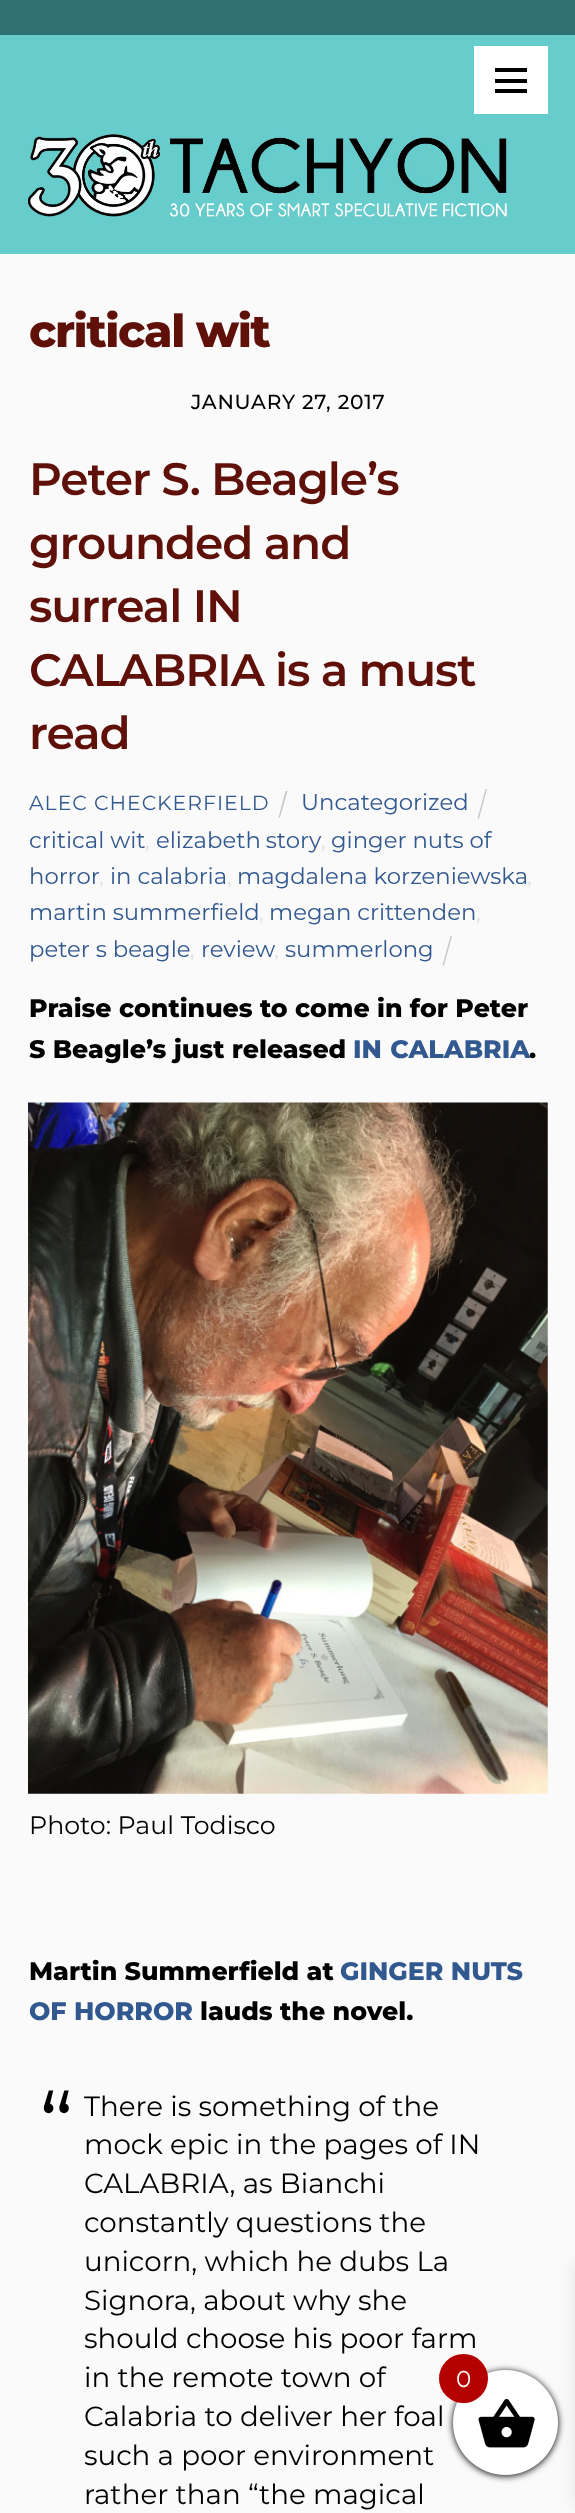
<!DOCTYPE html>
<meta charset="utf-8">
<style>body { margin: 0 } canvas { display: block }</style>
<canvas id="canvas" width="575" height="2513"></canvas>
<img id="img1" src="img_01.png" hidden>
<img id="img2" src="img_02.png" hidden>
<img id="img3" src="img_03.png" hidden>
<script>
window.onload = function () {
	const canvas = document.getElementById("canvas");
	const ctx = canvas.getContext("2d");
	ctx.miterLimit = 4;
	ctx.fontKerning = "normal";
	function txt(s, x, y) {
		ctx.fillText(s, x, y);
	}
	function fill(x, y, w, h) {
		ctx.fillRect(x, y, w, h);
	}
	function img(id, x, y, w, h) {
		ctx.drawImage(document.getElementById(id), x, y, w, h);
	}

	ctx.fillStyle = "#FAFAFA";
	fill(0, 0, 575, 2513);
	ctx.fillStyle = "#66CDCC";
	fill(0, 35, 575, 219);
	ctx.fillStyle = "#2F7170";
	fill(0, 0, 575, 35);
	ctx.fillStyle = "#FFFFFF";
	fill(474, 46, 74, 68);
	ctx.fillStyle = "#000000";
	fill(495, 89, 32, 4);
	fill(495, 68, 32, 4);
	fill(495, 79, 32, 4);
	img("img1", 28, 130, 482, 89);
	ctx.fillStyle = "#C8C8C8";
	ctx.beginPath();
	ctx.moveTo(285.5, 791);
	ctx.lineTo(287.5, 791);
	ctx.lineTo(280, 817.5);
	ctx.lineTo(278.5, 817.5);
	ctx.closePath();
	ctx.fill();
	ctx.beginPath();
	ctx.moveTo(485.5, 789);
	ctx.lineTo(487, 789);
	ctx.lineTo(479, 818.5);
	ctx.lineTo(477.5, 818.5);
	ctx.closePath();
	ctx.fill();
	ctx.beginPath();
	ctx.moveTo(450.5, 936);
	ctx.lineTo(452, 936);
	ctx.lineTo(444, 965.5);
	ctx.lineTo(442.5, 965.5);
	ctx.closePath();
	ctx.fill();
	img("img2", 28, 1102, 520, 692);
	ctx.fillStyle = "#000000";
	ctx.filter = "blur(3.5px)";
	ctx.beginPath();
	ctx.roundRect(453, 2371, 105, 105, 52.5);
	ctx.fill();
	ctx.filter = "none";
	ctx.fillStyle = "rgba(0, 0, 0, 0.1)";
	ctx.filter = "blur(9px)";
	ctx.beginPath();
	ctx.rect(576, 2263, 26, 241);
	ctx.fill();
	ctx.filter = "none";
	ctx.fillStyle = "#FFFFFF";
	ctx.beginPath();
	ctx.arc(505.5, 2422.5, 52.5, 0, Math.PI * 2);
	ctx.fill();
	img("img3", 478, 2399, 57, 49);
	ctx.fillStyle = "#B50000";
	ctx.beginPath();
	ctx.arc(463.5, 2378.5, 24.5, 0, Math.PI * 2);
	ctx.fill();
	ctx.letterSpacing = "-1.4px";
	ctx.font = "800 45.4px Montserrat";
	ctx.fillStyle = "#5E1009";
	txt("critical wit", 29, 347);
	ctx.letterSpacing = "0.75px";
	ctx.font = "500 20.25px Montserrat";
	ctx.fillStyle = "#000000";
	txt("JANUARY 27, 2017", 191, 409);
	ctx.letterSpacing = "-1.1px";
	ctx.font = "600 45.4px Montserrat";
	ctx.fillStyle = "#5E1009";
	txt("Peter S. Beagle’s", 29, 495);
	txt("grounded and", 29, 559);
	txt("surreal IN", 29, 622);
	txt("CALABRIA is a must", 29, 686);
	txt("read", 29, 749);
	ctx.letterSpacing = "1px";
	ctx.font = "20.4px Montserrat";
	ctx.fillStyle = "#31588F";
	txt("ALEC CHECKERFIELD", 29, 810);
	ctx.letterSpacing = "0px";
	ctx.font = "22.75px Montserrat";
	txt("Uncategorized", 301, 810);
	txt("critical wit", 29, 848);
	ctx.fillStyle = "#E1E1E1";
	txt(",", 145, 848);
	ctx.wordSpacing = "-1px";
	ctx.fillStyle = "#31588F";
	txt("elizabeth story", 156, 848);
	ctx.wordSpacing = "0px";
	ctx.fillStyle = "#E1E1E1";
	txt(",", 321, 848);
	ctx.fillStyle = "#31588F";
	txt("ginger nuts of", 331, 848);
	txt("horror", 29, 884);
	ctx.fillStyle = "#E1E1E1";
	txt(",", 99, 884);
	ctx.fillStyle = "#31588F";
	txt("in calabria", 110, 884);
	ctx.fillStyle = "#E1E1E1";
	txt(",", 227, 884);
	ctx.fillStyle = "#31588F";
	txt("magdalena korzeniewska", 237, 884);
	ctx.fillStyle = "#E1E1E1";
	txt(",", 527, 884);
	ctx.fillStyle = "#31588F";
	txt("martin summerfield", 29, 920);
	ctx.fillStyle = "#E1E1E1";
	txt(",", 259, 920);
	ctx.fillStyle = "#31588F";
	txt("megan crittenden", 269, 920);
	ctx.fillStyle = "#E1E1E1";
	txt(",", 476, 920);
	ctx.fillStyle = "#31588F";
	txt("peter s beagle", 29, 957);
	ctx.fillStyle = "#E1E1E1";
	txt(",", 190, 957);
	ctx.fillStyle = "#31588F";
	txt("review", 201, 957);
	ctx.fillStyle = "#E1E1E1";
	txt(",", 274, 957);
	ctx.fillStyle = "#31588F";
	txt("summerlong", 285, 957);
	ctx.font = "800 25.25px Montserrat";
	ctx.fillStyle = "#000000";
	txt("Praise continues to come in for Peter", 29, 1017);
	txt("S Beagle’s just released", 29, 1058);
	ctx.wordSpacing = "1px";
	ctx.fillStyle = "#31588F";
	txt("IN CALABRIA", 353, 1058);
	ctx.wordSpacing = "0px";
	ctx.fillStyle = "#000000";
	txt(".", 529, 1058);
	ctx.font = "25.25px Montserrat";
	txt("Photo: Paul Todisco", 29, 1834);
	ctx.font = "800 25.25px Montserrat";
	txt("Martin Summerfield at", 29, 1980);
	ctx.fillStyle = "#31588F";
	txt("GINGER NUTS", 340, 1980);
	txt("OF HORROR", 29, 2020);
	ctx.fillStyle = "#000000";
	txt("lauds the novel.", 200, 2020);
	ctx.font = "91px Montserrat";
	txt("“", 39, 2158);
	ctx.font = "27.75px Montserrat";
	txt("There is something of the", 84, 2116);
	txt("mock epic in the pages of IN", 84, 2154);
	txt("CALABRIA, as Bianchi", 84, 2193);
	txt("constantly questions the", 84, 2232);
	txt("unicorn, which he dubs La", 84, 2271);
	txt("Signora, about why she", 84, 2310);
	txt("should choose his poor farm", 84, 2348);
	txt("in the remote town of", 84, 2387);
	txt("Calabria to deliver her foal", 84, 2426);
	txt("such a poor environment", 84, 2465);
	txt("rather than “the magical", 84, 2504);
	ctx.font = "23px Montserrat";
	ctx.fillStyle = "#FFFFFF";
	txt("0", 456, 2387);
};
</script>
